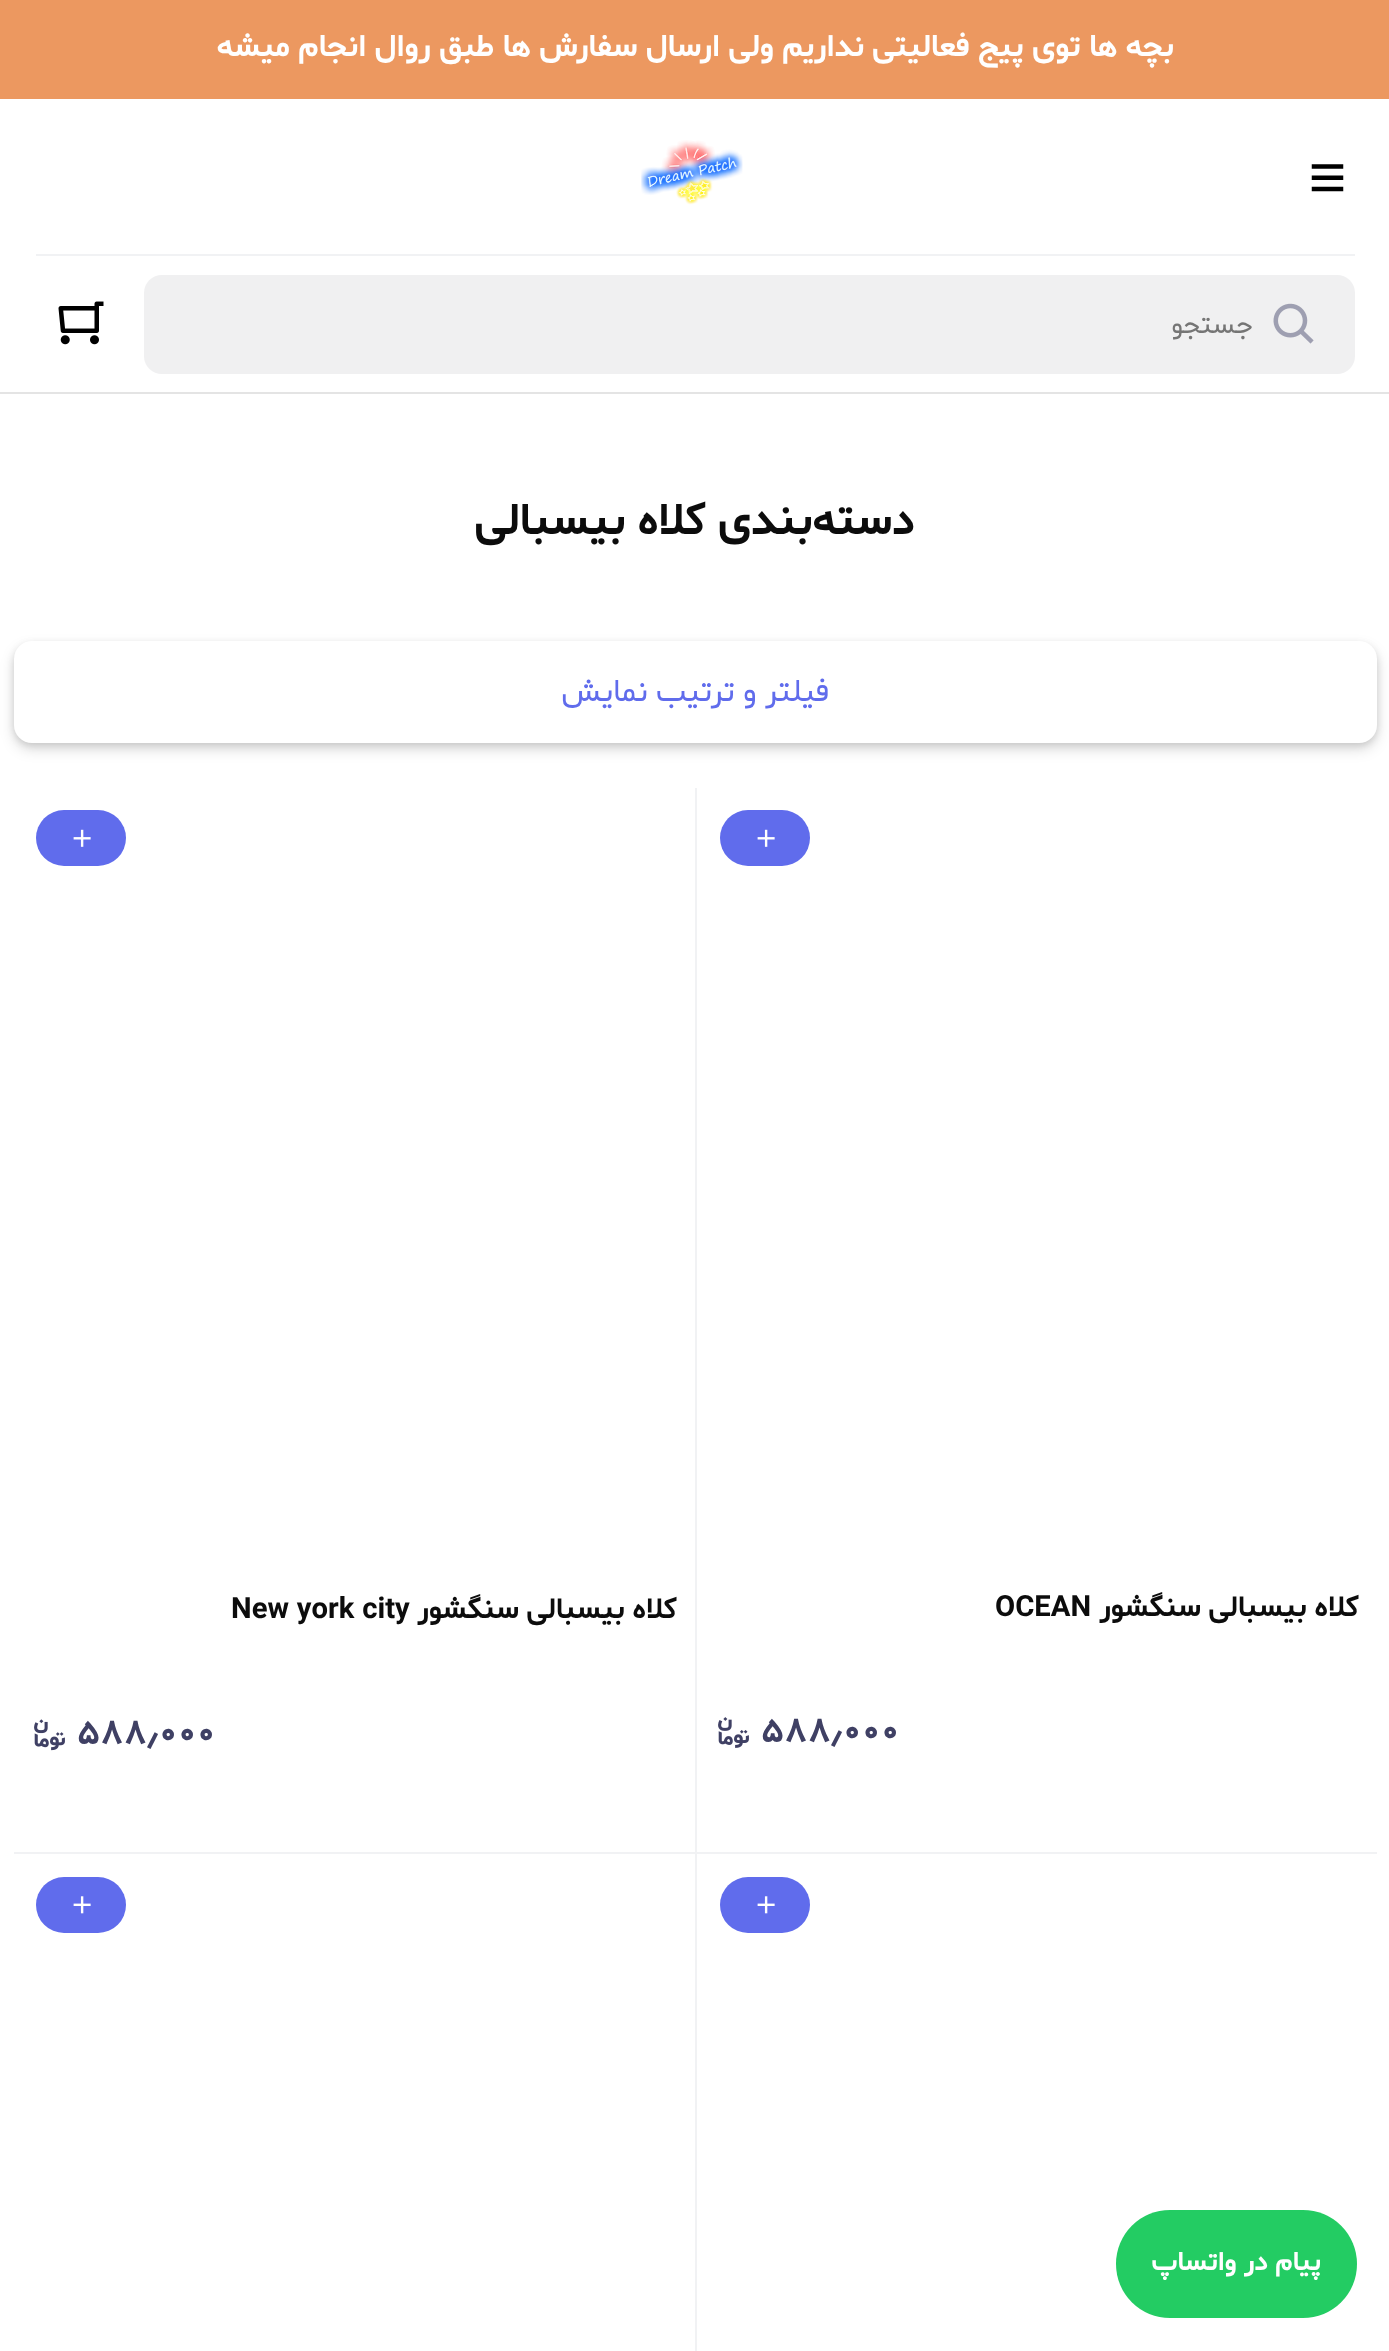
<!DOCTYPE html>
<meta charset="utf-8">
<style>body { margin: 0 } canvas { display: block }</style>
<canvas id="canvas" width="1389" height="2351"></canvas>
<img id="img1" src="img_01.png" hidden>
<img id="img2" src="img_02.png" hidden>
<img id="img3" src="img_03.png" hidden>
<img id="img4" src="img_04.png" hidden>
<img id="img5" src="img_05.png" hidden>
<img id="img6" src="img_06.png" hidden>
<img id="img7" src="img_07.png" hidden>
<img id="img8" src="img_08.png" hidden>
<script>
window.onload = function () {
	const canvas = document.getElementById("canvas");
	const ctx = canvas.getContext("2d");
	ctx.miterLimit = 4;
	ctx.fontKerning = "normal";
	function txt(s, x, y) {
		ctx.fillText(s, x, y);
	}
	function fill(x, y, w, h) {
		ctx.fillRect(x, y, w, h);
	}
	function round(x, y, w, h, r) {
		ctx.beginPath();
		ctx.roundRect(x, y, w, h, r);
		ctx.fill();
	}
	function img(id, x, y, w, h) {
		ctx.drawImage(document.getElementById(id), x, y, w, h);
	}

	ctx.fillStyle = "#FFFFFF";
	fill(0, 0, 1389, 2351);
	ctx.fillStyle = "#EC9860";
	fill(0, 0, 1389, 99);
	ctx.fillStyle = "#E4E4E4";
	fill(0, 392, 1389, 2);
	ctx.fillStyle = "#F1F2F4";
	fill(36, 254, 1319, 2);
	img("img1", 1311, 164, 33, 28);
	img("img2", 641, 140, 102, 65);
	ctx.fillStyle = "#F0F0F1";
	round(144, 275, 1211, 99, 18);
	img("img3", 1273, 303, 41, 41);
	img("img4", 58, 301, 46, 44);
	ctx.fillStyle = "rgba(0, 0, 0, 0.11)";
	ctx.filter = "blur(3.5px)";
	ctx.beginPath();
	ctx.roundRect(14, 644, 1363, 101, 18);
	ctx.fill();
	ctx.filter = "none";
	ctx.fillStyle = "rgba(0, 0, 0, 0.15)";
	ctx.filter = "blur(7px)";
	ctx.beginPath();
	ctx.roundRect(14, 648, 1363, 101, 18);
	ctx.fill();
	ctx.filter = "none";
	ctx.fillStyle = "#FFFFFF";
	round(14, 641, 1363, 102, 18);
	ctx.fillStyle = "#F1F2F4";
	fill(14, 1852, 1363, 2);
	fill(695, 788, 2, 1563);
	ctx.fillStyle = "#606CEC";
	round(720, 810, 90, 56, 28);
	img("img5", 757, 829, 18, 18);
	img("img6", 718, 1717, 31, 31);
	round(36, 810, 90, 56, 28);
	img("img5", 73, 829, 18, 18);
	img("img7", 34, 1719, 31, 32);
	round(720, 1877, 90, 56, 28);
	img("img8", 757, 1896, 18, 18);
	round(36, 1877, 90, 56, 28);
	img("img8", 73, 1896, 18, 18);
	ctx.fillStyle = "#23CC63";
	round(1116, 2210, 241, 108, 54);
	ctx.direction = "rtl";
	ctx.font = "bold 31.5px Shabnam";
	ctx.fillStyle = "#FFFFFF";
	txt("بچه ها توی پیج فعالیتی نداریم ولی ارسال سفارش ها طبق روال انجام میشه", 1174, 56);
	ctx.font = "27px Shabnam";
	ctx.fillStyle = "#757575";
	txt("جستجو", 1253, 333);
	ctx.font = "bold 45px Shabnam";
	ctx.fillStyle = "#0C0C0C";
	txt("دسته‌بندی کلاه بیسبالی", 915, 534);
	ctx.font = "31.5px Shabnam";
	ctx.fillStyle = "#606CEC";
	txt("فیلتر و ترتیب نمایش", 829, 701);
	ctx.font = "bold 29.25px Shabnam";
	ctx.fillStyle = "#0C0C0C";
	txt("کلاه بیسبالی سنگشور", 1359, 1616);
	ctx.direction = "ltr";
	txt("OCEAN", 995, 1616);
	ctx.font = "bold 36px Shabnam";
	ctx.fillStyle = "#3F4064";
	txt("۵۸۸٫۰۰۰", 761, 1742);
	ctx.direction = "rtl";
	ctx.font = "bold 29.25px Shabnam";
	ctx.fillStyle = "#0C0C0C";
	txt("کلاه بیسبالی سنگشور", 677, 1618);
	ctx.direction = "ltr";
	txt("New york city", 231, 1618);
	ctx.font = "bold 36px Shabnam";
	ctx.fillStyle = "#3F4064";
	txt("۵۸۸٫۰۰۰", 77, 1744);
	ctx.direction = "rtl";
	ctx.font = "bold 27px Shabnam";
	ctx.fillStyle = "#FFFFFF";
	txt("پیام در واتساپ", 1321, 2270);
};
</script>
